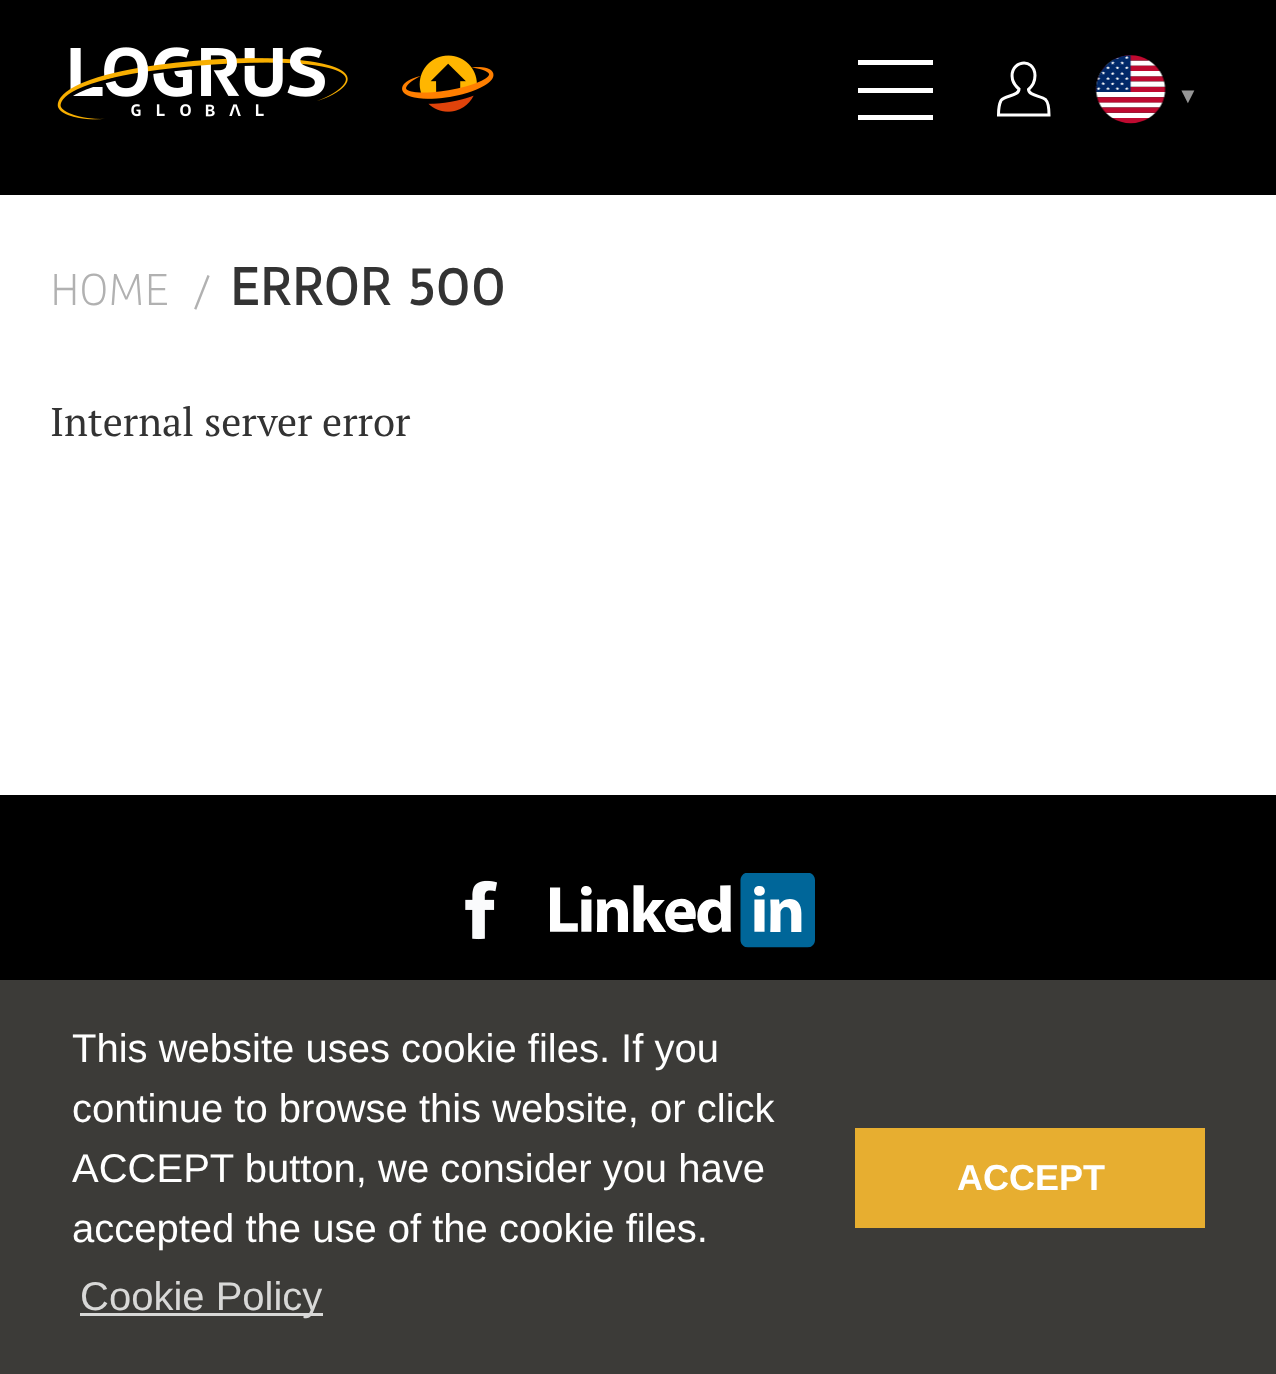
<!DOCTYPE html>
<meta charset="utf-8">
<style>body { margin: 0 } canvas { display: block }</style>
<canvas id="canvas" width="1276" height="1374"></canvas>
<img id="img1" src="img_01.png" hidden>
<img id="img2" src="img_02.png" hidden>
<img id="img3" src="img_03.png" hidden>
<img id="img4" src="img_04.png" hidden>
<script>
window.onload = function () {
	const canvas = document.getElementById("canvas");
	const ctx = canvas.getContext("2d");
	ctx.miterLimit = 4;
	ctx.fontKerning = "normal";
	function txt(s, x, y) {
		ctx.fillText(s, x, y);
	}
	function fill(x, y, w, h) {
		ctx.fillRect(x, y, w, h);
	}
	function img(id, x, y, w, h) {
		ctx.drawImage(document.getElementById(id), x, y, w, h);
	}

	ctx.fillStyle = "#FFFFFF";
	fill(0, 0, 1276, 1374);
	ctx.fillStyle = "#000000";
	fill(0, 0, 1276, 195);
	img("img1", 57, 47, 437, 73);
	ctx.fillStyle = "#FFFFFF";
	fill(858, 60, 75, 5);
	fill(858, 88, 75, 5);
	fill(858, 115, 75, 5);
	ctx.beginPath();
	ctx.moveTo(998.5, 115);
	ctx.bezierCurveTo(998.5, 110.5, 999, 104.5, 1001, 100.5);
	ctx.bezierCurveTo(1004.5, 95, 1019, 96.5, 1019, 89);
	ctx.bezierCurveTo(1016, 86.5, 1013.5, 83, 1012.5, 79.5);
	ctx.bezierCurveTo(1008.5, 60.5, 1034.5, 56.5, 1035, 75.5);
	ctx.bezierCurveTo(1035, 80.5, 1032.5, 86, 1028.5, 89.5);
	ctx.bezierCurveTo(1028.5, 95.5, 1041.5, 96, 1045.5, 99.5);
	ctx.bezierCurveTo(1048.5, 102.5, 1049, 111, 1049, 115);
	ctx.closePath();
	ctx.strokeStyle = "#FFFFFF";
	ctx.lineWidth = 3;
	ctx.stroke();
	img("img2", 1095, 55, 71, 69);
	ctx.fillStyle = "#000000";
	fill(0, 795, 1276, 185);
	img("img3", 465, 880, 32, 60);
	img("img4", 550, 873, 265, 75);
	ctx.fillStyle = "#3C3B38";
	fill(0, 980, 1276, 394);
	ctx.fillStyle = "#D8D8D7";
	fill(80, 1313, 243, 3);
	ctx.fillStyle = "#E7AE30";
	fill(855, 1128, 350, 100);
	ctx.font = "bold 22px Liberation Sans";
	ctx.fillStyle = "#969696";
	txt("▼", 1177, 103);
	ctx.font = "45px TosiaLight";
	ctx.fillStyle = "#B1B1B1";
	txt("HOME", 50, 305);
	txt("/", 192, 308);
	ctx.font = "55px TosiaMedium";
	ctx.fillStyle = "#333333";
	txt("ERROR 500", 230, 305);
	ctx.font = "40px PT Serif";
	txt("Internal server error", 50, 436);
	ctx.font = "40px Liberation Sans";
	ctx.fillStyle = "#FFFFFF";
	txt("This website uses cookie files. If you", 72, 1062);
	txt("continue to browse this website, or click", 72, 1122);
	txt("ACCEPT button, we consider you have", 72, 1182);
	txt("accepted the use of the cookie files.", 72, 1242);
	ctx.fillStyle = "#D8D8D7";
	txt("Cookie Policy", 80, 1310);
	ctx.font = "bold 36px Liberation Sans";
	ctx.fillStyle = "#FFFFFF";
	txt("ACCEPT", 957, 1190);
};
</script>
